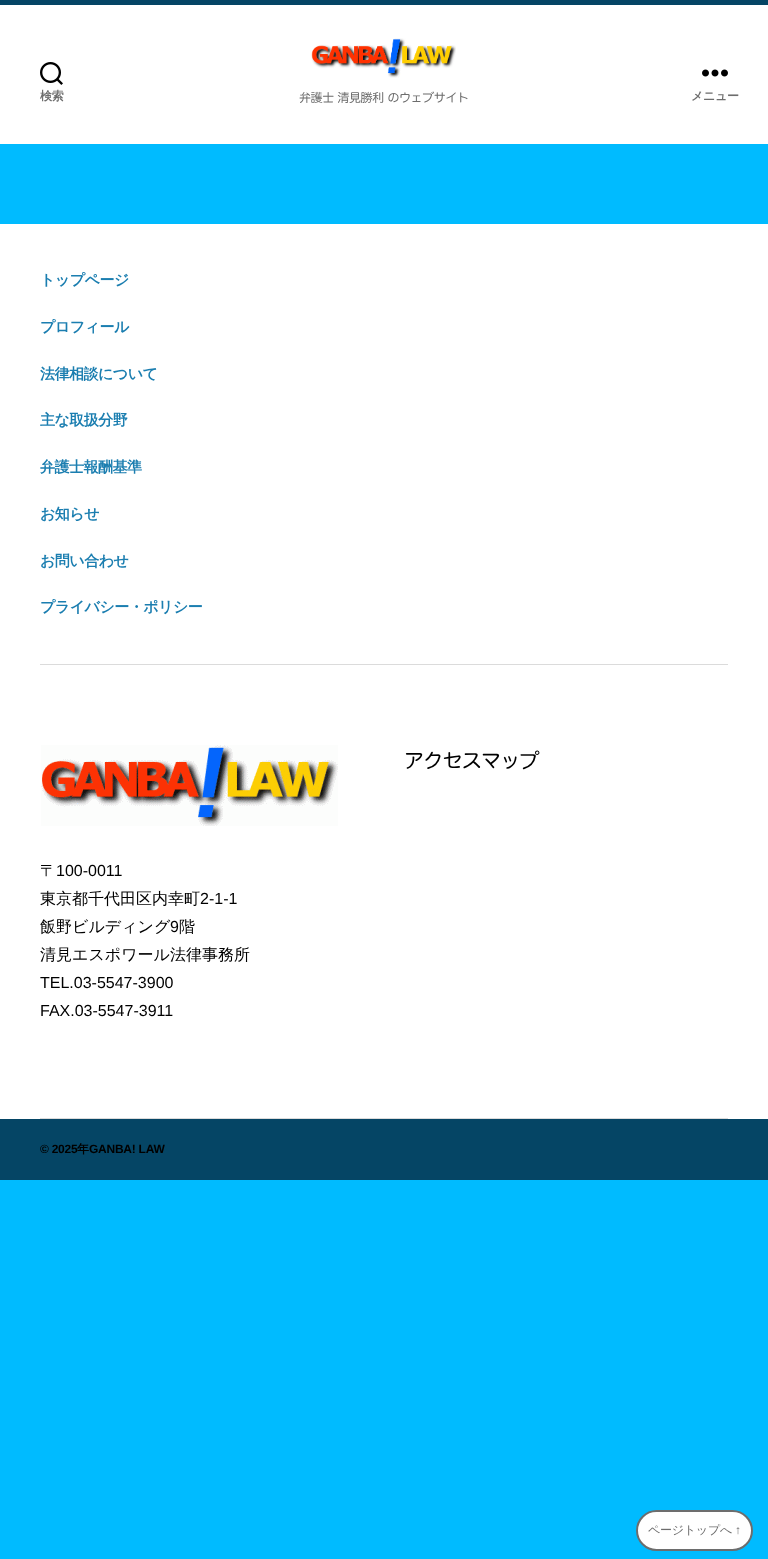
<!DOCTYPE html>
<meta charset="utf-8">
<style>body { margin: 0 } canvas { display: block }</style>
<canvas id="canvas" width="768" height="1559"></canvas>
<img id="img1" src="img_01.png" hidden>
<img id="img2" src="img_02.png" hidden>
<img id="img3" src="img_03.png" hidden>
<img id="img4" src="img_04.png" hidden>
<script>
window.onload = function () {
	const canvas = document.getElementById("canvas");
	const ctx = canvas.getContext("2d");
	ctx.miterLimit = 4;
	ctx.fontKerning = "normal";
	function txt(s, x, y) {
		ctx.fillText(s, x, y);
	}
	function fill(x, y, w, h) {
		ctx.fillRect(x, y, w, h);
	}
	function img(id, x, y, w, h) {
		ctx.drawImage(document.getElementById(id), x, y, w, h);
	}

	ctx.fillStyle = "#00BBFF";
	fill(0, 0, 768, 1559);
	ctx.fillStyle = "#FFFFFF";
	fill(0, 5, 768, 139);
	ctx.fillStyle = "#054565";
	fill(0, 0, 768, 5);
	img("img1", 40, 62, 23, 23);
	img("img2", 311, 38, 145, 40);
	img("img3", 702, 69, 26, 8);
	ctx.fillStyle = "#FFFFFF";
	fill(0, 224, 768, 895);
	ctx.fillStyle = "#DBDBDB";
	fill(40, 664, 688, 1);
	fill(40, 1118, 688, 1);
	img("img4", 41, 745, 297, 81);
	ctx.fillStyle = "#054565";
	fill(0, 1119, 768, 61);
	ctx.fillStyle = "#FFFFFF";
	ctx.beginPath();
	ctx.roundRect(637, 1511, 115, 39, 19.5);
	ctx.fill();
	ctx.strokeStyle = "#6D6D6D";
	ctx.lineWidth = 2;
	ctx.stroke();
	ctx.letterSpacing = "-0.25px";
	ctx.font = "bold 12px WenQuanYi Zen Hei";
	ctx.fillStyle = "#6D6D6D";
	txt("検索", 40, 100);
	ctx.letterSpacing = "-0.4px";
	ctx.font = "12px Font";
	txt("弁護士 清見勝利 のウェブサイト", 299, 102);
	ctx.letterSpacing = "-0.25px";
	ctx.font = "bold 12px WenQuanYi Zen Hei";
	txt("メニュー", 691, 100);
	ctx.letterSpacing = "-0.5px";
	ctx.font = "bold 15px WenQuanYi Zen Hei";
	ctx.fillStyle = "#1B7EB0";
	txt("トップページ", 40, 285);
	txt("プロフィール", 40, 332);
	txt("法律相談について", 40, 379);
	txt("主な取扱分野", 40, 425);
	txt("弁護士報酬基準", 40, 472);
	txt("お知らせ", 40, 519);
	txt("お問い合わせ", 40, 566);
	txt("プライバシー・ポリシー", 40, 612);
	ctx.letterSpacing = "-0.75px";
	ctx.font = "20px Font";
	ctx.fillStyle = "#000000";
	txt("アクセスマップ", 404, 768);
	ctx.letterSpacing = "0px";
	ctx.font = "500 16px WenQuanYi Zen Hei";
	txt("〒", 40, 876);
	ctx.font = "16px Liberation Sans";
	txt("100-0011", 56, 876);
	ctx.font = "500 16px WenQuanYi Zen Hei";
	txt("東京都千代田区内幸町", 40, 904);
	ctx.font = "16px Liberation Sans";
	txt("2-1-1", 200, 904);
	ctx.font = "500 16px WenQuanYi Zen Hei";
	txt("飯野ビルディング", 40, 932);
	ctx.font = "16px Liberation Sans";
	txt("9", 170, 932);
	ctx.font = "500 16px WenQuanYi Zen Hei";
	txt("階", 179, 932);
	txt("清見エスポワール法律事務所", 40, 960);
	ctx.font = "16px Liberation Sans";
	txt("TEL.03-5547-3900", 40, 988);
	txt("FAX.03-5547-3911", 40, 1016);
	ctx.letterSpacing = "-0.25px";
	ctx.font = "bold 12px Liberation Sans";
	txt("© 2025", 40, 1153);
	ctx.font = "bold 12px WenQuanYi Zen Hei";
	txt("年", 77, 1153);
	ctx.font = "bold 12px Liberation Sans";
	txt("GANBA! LAW", 89, 1153);
	ctx.font = "500 12px WenQuanYi Zen Hei";
	ctx.fillStyle = "#6D6D6D";
	txt("ページトップへ", 648, 1534);
	ctx.font = "12px Liberation Sans";
	txt("↑", 735, 1534);
};
</script>
